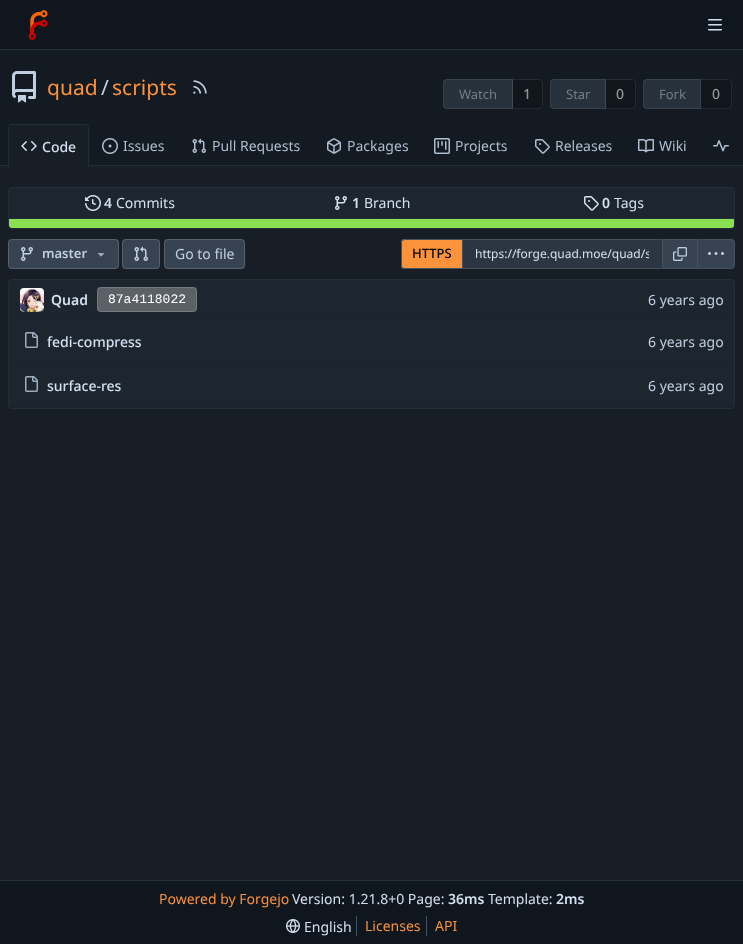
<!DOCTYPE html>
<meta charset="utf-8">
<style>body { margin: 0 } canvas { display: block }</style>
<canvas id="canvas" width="743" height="944"></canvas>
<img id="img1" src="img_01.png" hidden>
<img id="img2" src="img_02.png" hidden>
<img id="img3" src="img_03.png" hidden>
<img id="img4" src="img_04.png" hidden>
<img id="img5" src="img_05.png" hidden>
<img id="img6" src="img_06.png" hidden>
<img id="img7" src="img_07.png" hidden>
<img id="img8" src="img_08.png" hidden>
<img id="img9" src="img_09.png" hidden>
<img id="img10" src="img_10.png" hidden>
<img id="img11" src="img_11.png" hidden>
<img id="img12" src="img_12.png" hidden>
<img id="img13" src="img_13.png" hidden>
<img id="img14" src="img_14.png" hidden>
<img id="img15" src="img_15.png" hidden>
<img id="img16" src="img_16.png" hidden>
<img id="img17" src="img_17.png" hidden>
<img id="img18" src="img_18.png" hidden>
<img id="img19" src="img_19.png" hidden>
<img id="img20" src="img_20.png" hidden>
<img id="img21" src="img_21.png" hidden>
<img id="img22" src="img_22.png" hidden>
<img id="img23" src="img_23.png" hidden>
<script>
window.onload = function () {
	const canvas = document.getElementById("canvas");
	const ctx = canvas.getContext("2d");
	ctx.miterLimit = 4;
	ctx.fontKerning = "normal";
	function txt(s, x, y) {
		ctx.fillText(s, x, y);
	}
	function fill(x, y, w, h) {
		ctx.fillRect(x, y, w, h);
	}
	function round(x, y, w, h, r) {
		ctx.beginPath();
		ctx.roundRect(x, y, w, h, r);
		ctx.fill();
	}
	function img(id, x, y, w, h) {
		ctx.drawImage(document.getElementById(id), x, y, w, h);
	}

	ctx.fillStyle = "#171E26";
	fill(0, 0, 743, 944);
	ctx.fillStyle = "#10161D";
	fill(0, 0, 743, 49);
	ctx.fillStyle = "#242D38";
	fill(0, 49, 743, 1);
	img("img1", 28, 10, 20, 30);
	img("img2", 708, 19, 14, 12);
	ctx.fillStyle = "#131A21";
	fill(0, 50, 743, 115);
	img("img3", 12, 71, 24, 32);
	img("img4", 193, 80, 14, 14);
	ctx.fillStyle = "#27313B";
	ctx.beginPath();
	ctx.roundRect(443, 79, 70, 30, [4, 0, 0, 4]);
	ctx.fill();
	ctx.beginPath();
	ctx.roundRect(443.5, 79.5, 69, 29, [3.5, 0, 0, 3.5]);
	ctx.strokeStyle = "rgba(149, 152, 155, 0.16)";
	ctx.stroke();
	ctx.fillStyle = "rgba(0, 0, 0, 0.14)";
	ctx.beginPath();
	ctx.roundRect(512, 79, 31, 30, [0, 4, 4, 0]);
	ctx.fill();
	ctx.beginPath();
	ctx.roundRect(512.5, 79.5, 30, 29, [0, 3.5, 3.5, 0]);
	ctx.strokeStyle = "rgba(255, 255, 255, 0.09)";
	ctx.stroke();
	ctx.fillStyle = "#27313B";
	ctx.beginPath();
	ctx.roundRect(550, 79, 56, 30, [4, 0, 0, 4]);
	ctx.fill();
	ctx.beginPath();
	ctx.roundRect(550.5, 79.5, 55, 29, [3.5, 0, 0, 3.5]);
	ctx.strokeStyle = "rgba(149, 152, 155, 0.16)";
	ctx.stroke();
	ctx.fillStyle = "rgba(0, 0, 0, 0.14)";
	ctx.beginPath();
	ctx.roundRect(605, 79, 31, 30, [0, 4, 4, 0]);
	ctx.fill();
	ctx.beginPath();
	ctx.roundRect(605.5, 79.5, 30, 29, [0, 3.5, 3.5, 0]);
	ctx.strokeStyle = "rgba(255, 255, 255, 0.09)";
	ctx.stroke();
	ctx.fillStyle = "#27313B";
	ctx.beginPath();
	ctx.roundRect(643, 79, 58, 30, [4, 0, 0, 4]);
	ctx.fill();
	ctx.beginPath();
	ctx.roundRect(643.5, 79.5, 57, 29, [3.5, 0, 0, 3.5]);
	ctx.strokeStyle = "rgba(149, 152, 155, 0.16)";
	ctx.stroke();
	ctx.fillStyle = "rgba(9, 12, 15, 0.25)";
	ctx.beginPath();
	ctx.roundRect(700, 79, 32, 30, [0, 4, 4, 0]);
	ctx.fill();
	ctx.beginPath();
	ctx.roundRect(700.5, 79.5, 31, 29, [0, 3.5, 3.5, 0]);
	ctx.stroke();
	ctx.fillStyle = "#242D38";
	fill(0, 165, 743, 1);
	ctx.fillStyle = "#171E26";
	ctx.beginPath();
	ctx.roundRect(8, 124, 81, 42, [4, 4, 0, 0]);
	ctx.fill();
	ctx.fillStyle = "#242D38";
	ctx.beginPath();
	ctx.moveTo(12, 124);
	ctx.lineTo(85, 124);
	ctx.bezierCurveTo(87, 124, 89, 126, 89, 128);
	ctx.lineTo(89, 167);
	ctx.lineTo(8, 167);
	ctx.lineTo(8, 128);
	ctx.bezierCurveTo(8, 126, 10, 124, 12, 124);
	ctx.closePath();
	ctx.moveTo(12, 125);
	ctx.lineTo(85, 125);
	ctx.bezierCurveTo(87, 125, 88, 126, 88, 128);
	ctx.lineTo(88, 167);
	ctx.lineTo(9, 167);
	ctx.lineTo(9, 128);
	ctx.bezierCurveTo(9, 126, 10, 125, 12, 125);
	ctx.closePath();
	ctx.fill("evenodd");
	img("img5", 21, 141, 16, 10);
	img("img6", 102, 138, 16, 16);
	img("img7", 192, 138, 14, 15);
	img("img8", 327, 138, 14, 16);
	img("img9", 434, 138, 16, 16);
	img("img10", 535, 139, 15, 15);
	img("img11", 638, 139, 16, 14);
	img("img12", 713, 140, 16, 12);
	ctx.fillStyle = "#1D262F";
	ctx.beginPath();
	ctx.roundRect(8.5, 187.5, 726, 41, 3.5);
	ctx.fill();
	ctx.strokeStyle = "#242D38";
	ctx.stroke();
	img("img13", 85, 195, 16, 16);
	img("img14", 335, 196, 12, 14);
	img("img15", 584, 196, 15, 15);
	ctx.fillStyle = "#242D38";
	fill(9, 218, 725, 1);
	ctx.fillStyle = "#89E051";
	ctx.beginPath();
	ctx.roundRect(9, 219, 725, 9, [0, 0, 3, 3]);
	ctx.fill();
	ctx.fillStyle = "#374351";
	round(8, 239, 111, 30, 4);
	ctx.beginPath();
	ctx.roundRect(8.5, 239.5, 110, 29, 3.5);
	ctx.strokeStyle = "rgba(255, 255, 255, 0.16)";
	ctx.stroke();
	img("img16", 21, 247, 12, 14);
	img("img17", 97, 253, 8, 4);
	round(122, 239, 38, 30, 4);
	ctx.beginPath();
	ctx.roundRect(122.5, 239.5, 37, 29, 3.5);
	ctx.stroke();
	img("img18", 134, 246, 14, 15);
	round(164, 239, 81, 30, 4);
	ctx.beginPath();
	ctx.roundRect(164.5, 239.5, 80, 29, 3.5);
	ctx.stroke();
	ctx.fillStyle = "#FB923C";
	ctx.beginPath();
	ctx.roundRect(401, 239, 61, 30, [4, 0, 0, 4]);
	ctx.fill();
	ctx.fillStyle = "#445161";
	ctx.beginPath();
	ctx.moveTo(405, 239);
	ctx.lineTo(462, 239);
	ctx.lineTo(462, 269);
	ctx.lineTo(405, 269);
	ctx.bezierCurveTo(403, 269, 401, 267, 401, 265);
	ctx.lineTo(401, 243);
	ctx.bezierCurveTo(401, 241, 403, 239, 405, 239);
	ctx.closePath();
	ctx.moveTo(405, 240);
	ctx.lineTo(462, 240);
	ctx.lineTo(462, 268);
	ctx.lineTo(405, 268);
	ctx.bezierCurveTo(403, 268, 402, 267, 402, 265);
	ctx.lineTo(402, 243);
	ctx.bezierCurveTo(402, 241, 403, 240, 405, 240);
	ctx.closePath();
	ctx.fill("evenodd");
	ctx.fillStyle = "#2B3642";
	fill(463, 239, 199, 30);
	ctx.fillStyle = "#445161";
	ctx.beginPath();
	ctx.moveTo(462, 239);
	ctx.lineTo(662, 239);
	ctx.lineTo(661, 240);
	ctx.lineTo(463, 240);
	ctx.closePath();
	ctx.fill();
	ctx.beginPath();
	ctx.moveTo(662, 269);
	ctx.lineTo(462, 269);
	ctx.lineTo(463, 268);
	ctx.lineTo(661, 268);
	ctx.closePath();
	ctx.fill();
	fill(462, 239, 1, 30);
	ctx.fillStyle = "#374351";
	ctx.beginPath();
	ctx.rect(662.5, 239.5, 35, 29);
	ctx.fill();
	ctx.strokeStyle = "#445161";
	ctx.stroke();
	img("img19", 673, 247, 14, 14);
	ctx.beginPath();
	ctx.roundRect(698, 239, 37, 30, [0, 4, 4, 0]);
	ctx.fill();
	ctx.fillStyle = "#445161";
	ctx.beginPath();
	ctx.moveTo(698, 239);
	ctx.lineTo(731, 239);
	ctx.bezierCurveTo(733, 239, 735, 241, 735, 243);
	ctx.lineTo(735, 265);
	ctx.bezierCurveTo(735, 267, 733, 269, 731, 269);
	ctx.lineTo(698, 269);
	ctx.closePath();
	ctx.moveTo(698, 240);
	ctx.lineTo(731, 240);
	ctx.bezierCurveTo(732.5, 240, 734, 241.5, 734, 243);
	ctx.lineTo(734, 265);
	ctx.bezierCurveTo(734, 266.5, 732.5, 268, 731, 268);
	ctx.lineTo(698, 268);
	ctx.closePath();
	ctx.fill("evenodd");
	img("img20", 708, 252, 16, 3);
	ctx.fillStyle = "#1D262F";
	ctx.beginPath();
	ctx.roundRect(8.5, 279.5, 726, 129, 3.5);
	ctx.fill();
	ctx.strokeStyle = "#242D38";
	ctx.stroke();
	ctx.fillStyle = "#1A222A";
	fill(9, 319, 725, 1);
	img("img21", 20, 288, 24, 24);
	ctx.fillStyle = "#5B6166";
	round(97, 287, 100, 25, 4);
	ctx.beginPath();
	ctx.roundRect(97.5, 287.5, 99, 24, 3.5);
	ctx.strokeStyle = "rgba(255, 255, 255, 0.16)";
	ctx.stroke();
	ctx.fillStyle = "#1A222A";
	fill(9, 363, 725, 1);
	img("img22", 25, 332, 13, 16);
	ctx.fillStyle = "rgba(0, 0, 0, 0.1)";
	fill(9, 407, 725, 1);
	img("img22", 25, 376, 13, 16);
	ctx.fillStyle = "#10161D";
	fill(0, 881, 743, 63);
	ctx.fillStyle = "#242D38";
	fill(0, 880, 743, 1);
	img("img23", 286, 919, 14, 14);
	ctx.fillStyle = "#445161";
	fill(356, 916, 1, 20);
	fill(426, 916, 1, 20);
	ctx.font = "21px Noto Sans";
	ctx.fillStyle = "#FB923C";
	txt("quad", 47, 95);
	ctx.fillStyle = "#C0CFE0";
	txt("/", 101, 95);
	ctx.fillStyle = "#FB923C";
	txt("scripts", 112, 95);
	ctx.font = "13px Noto Sans";
	ctx.fillStyle = "#727E8A";
	txt("Watch", 459, 99);
	ctx.font = "500 14px Noto Sans";
	ctx.fillStyle = "#95989B";
	txt("1", 523, 99);
	ctx.font = "13px Noto Sans";
	ctx.fillStyle = "#727E8A";
	txt("Star", 566, 99);
	ctx.font = "500 14px Noto Sans";
	ctx.fillStyle = "#95989B";
	txt("0", 616, 99);
	ctx.font = "13px Noto Sans";
	ctx.fillStyle = "#727E8A";
	txt("Fork", 659, 99);
	ctx.font = "500 14px Noto Sans";
	ctx.fillStyle = "#95989B";
	txt("0", 712, 99);
	ctx.fillStyle = "#D2E0F0";
	txt("Code", 42, 152);
	ctx.font = "14px Noto Sans";
	ctx.fillStyle = "#AEBED0";
	txt("Issues", 123, 151);
	txt("Pull Requests", 212, 151);
	txt("Packages", 347, 151);
	txt("Projects", 455, 151);
	txt("Releases", 555, 151);
	txt("Wiki", 659, 151);
	ctx.font = "600 14px Noto Sans";
	ctx.fillStyle = "#D2E0F0";
	txt("4", 104, 208);
	ctx.font = "14px Noto Sans";
	txt("Commits", 116, 208);
	ctx.font = "600 14px Noto Sans";
	txt("1", 352, 208);
	ctx.font = "14px Noto Sans";
	txt("Branch", 364, 208);
	ctx.font = "600 14px Noto Sans";
	txt("0", 602, 208);
	ctx.font = "14px Noto Sans";
	txt("Tags", 614, 208);
	ctx.font = "600 13px Noto Sans";
	ctx.fillStyle = "#C0CFE0";
	txt("master", 42, 258);
	ctx.font = "14px Noto Sans";
	txt("Go to file", 175, 259);
	ctx.font = "500 13px Noto Sans";
	ctx.fillStyle = "#000000";
	txt("HTTPS", 412, 258);
	ctx.save();
	ctx.beginPath();
	ctx.rect(475, 245, 174, 17);
	ctx.clip();
	ctx.font = "12px Noto Sans";
	ctx.fillStyle = "#D2E0F0";
	txt("https://forge.quad.moe/quad/s", 475, 258);
	ctx.restore();
	ctx.font = "600 14px Noto Sans";
	ctx.fillStyle = "#D2E0F0";
	txt("Quad", 51, 305);
	ctx.font = "13px Liberation Mono";
	ctx.fillStyle = "#FFFFFF";
	txt("87a4118022", 108, 303);
	ctx.font = "14px Noto Sans";
	ctx.fillStyle = "#C0CFE0";
	txt("6 years ago", 648, 305);
	ctx.font = "500 14px Noto Sans";
	ctx.fillStyle = "#D2E0F0";
	txt("fedi-compress", 47, 347);
	ctx.font = "14px Noto Sans";
	ctx.fillStyle = "#C0CFE0";
	txt("6 years ago", 648, 347);
	ctx.font = "500 14px Noto Sans";
	ctx.fillStyle = "#D2E0F0";
	txt("surface-res", 47, 391);
	ctx.font = "14px Noto Sans";
	ctx.fillStyle = "#C0CFE0";
	txt("6 years ago", 648, 391);
	ctx.fillStyle = "#FB923C";
	txt("Powered by Forgejo", 159, 904);
	ctx.fillStyle = "#D2E0F0";
	txt("Version: 1.21.8+0 Page:", 292, 904);
	ctx.font = "600 14px Noto Sans";
	txt("36ms", 448, 904);
	ctx.font = "14px Noto Sans";
	txt("Template:", 488, 904);
	ctx.font = "600 14px Noto Sans";
	txt("2ms", 556, 904);
	ctx.font = "14px Noto Sans";
	txt("English", 304, 932);
	ctx.fillStyle = "#FB923C";
	txt("Licenses", 365, 931);
	txt("API", 435, 931);
};
</script>
